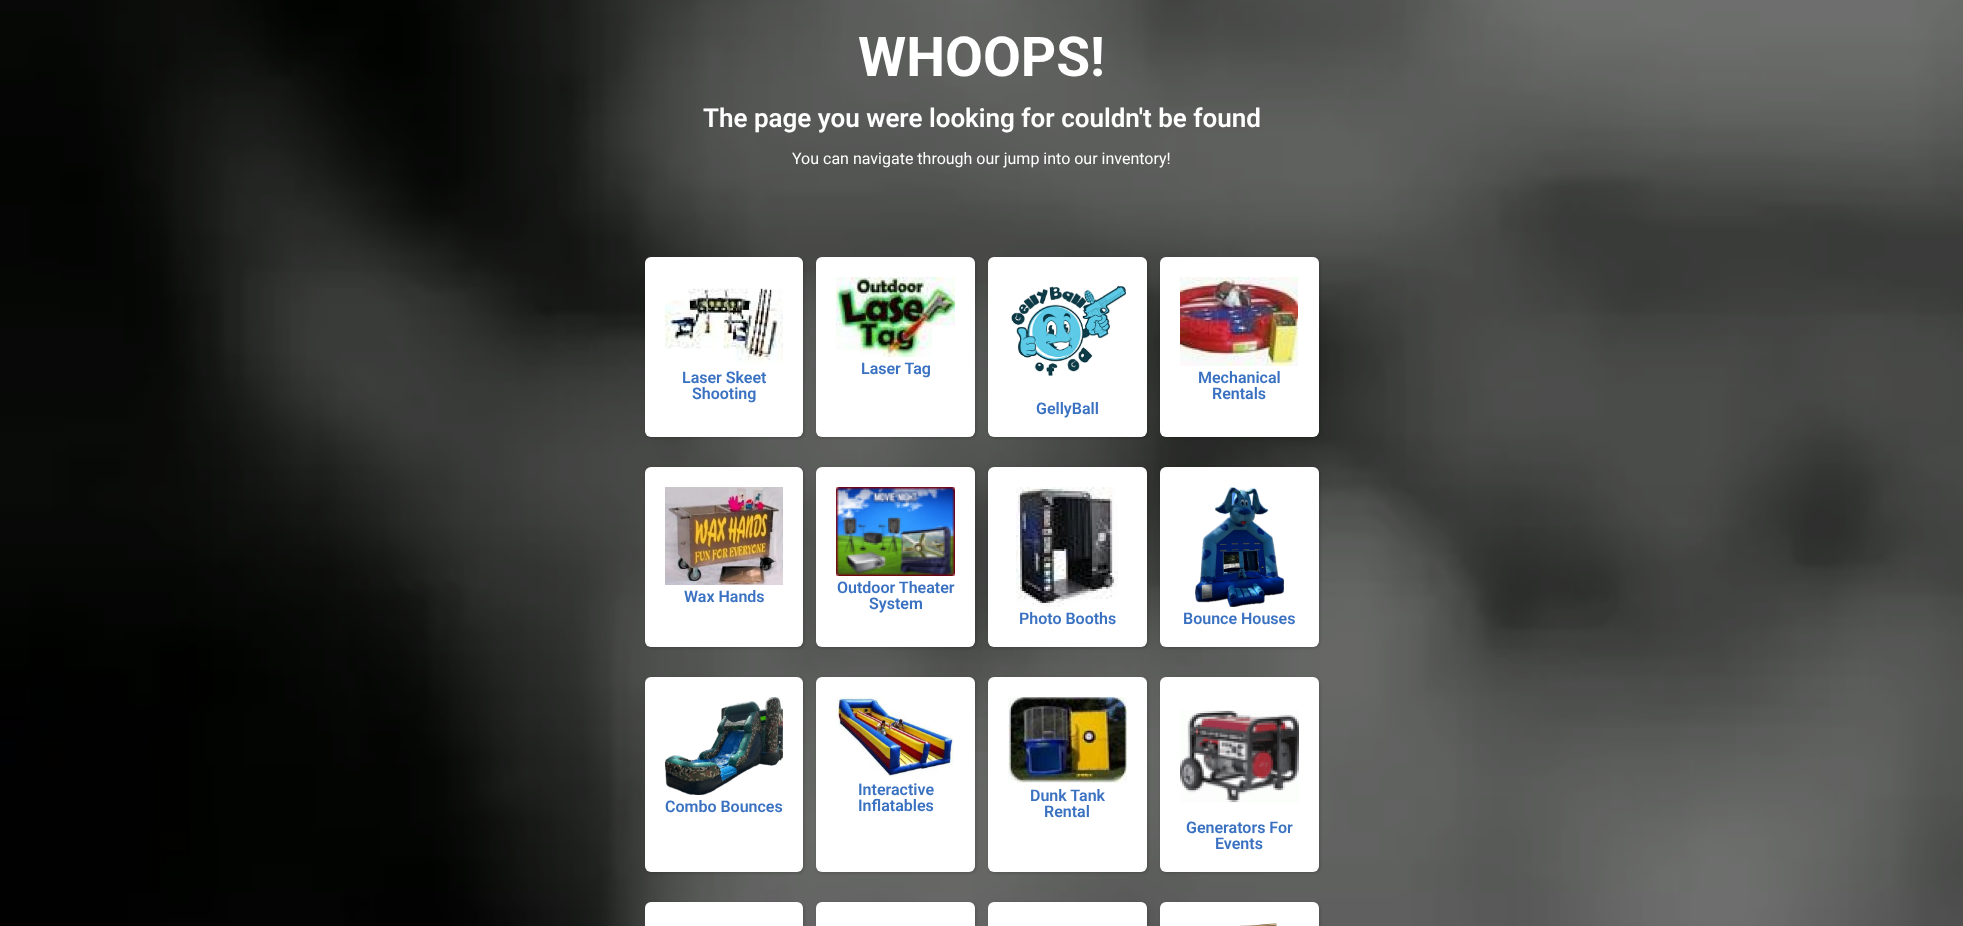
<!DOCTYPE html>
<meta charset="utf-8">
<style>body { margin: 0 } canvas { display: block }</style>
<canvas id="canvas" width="1963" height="926"></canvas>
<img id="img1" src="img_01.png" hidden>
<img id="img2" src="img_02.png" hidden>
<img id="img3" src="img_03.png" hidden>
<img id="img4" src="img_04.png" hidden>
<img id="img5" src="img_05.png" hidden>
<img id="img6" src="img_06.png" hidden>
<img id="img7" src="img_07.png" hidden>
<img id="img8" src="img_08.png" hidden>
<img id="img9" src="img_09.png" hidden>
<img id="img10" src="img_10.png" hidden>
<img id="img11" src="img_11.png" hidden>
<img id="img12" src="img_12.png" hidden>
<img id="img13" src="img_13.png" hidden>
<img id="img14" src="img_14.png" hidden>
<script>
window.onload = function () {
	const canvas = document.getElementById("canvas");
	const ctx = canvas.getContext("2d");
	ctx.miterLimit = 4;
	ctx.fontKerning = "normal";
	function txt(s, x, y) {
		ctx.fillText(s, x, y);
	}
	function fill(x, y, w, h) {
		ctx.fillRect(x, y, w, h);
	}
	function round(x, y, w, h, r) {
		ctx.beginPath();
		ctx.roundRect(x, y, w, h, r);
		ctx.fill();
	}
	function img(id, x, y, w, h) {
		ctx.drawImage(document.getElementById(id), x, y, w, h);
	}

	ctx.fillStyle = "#FFFFFF";
	fill(0, 0, 1963, 926);
	img("img1", 0, 0, 1963, 926);
	ctx.fillStyle = "rgba(0, 0, 0, 0.2)";
	ctx.filter = "blur(1.5px)";
	ctx.beginPath();
	ctx.roundRect(646, 258, 158, 180, 6);
	ctx.fill();
	ctx.filter = "none";
	ctx.fillStyle = "#FFFFFF";
	round(645, 257, 158, 180, 6);
	img("img2", 665, 288, 118, 76);
	ctx.fillStyle = "rgba(0, 0, 0, 0.2)";
	ctx.filter = "blur(1.5px)";
	ctx.beginPath();
	ctx.roundRect(817, 258, 159, 180, 6);
	ctx.fill();
	ctx.filter = "none";
	ctx.fillStyle = "#FFFFFF";
	round(816, 257, 159, 180, 6);
	img("img3", 836, 277, 119, 80);
	ctx.fillStyle = "rgba(0, 0, 0, 0.2)";
	ctx.filter = "blur(1.5px)";
	ctx.beginPath();
	ctx.roundRect(1161, 258, 159, 180, 6);
	ctx.fill();
	ctx.filter = "none";
	ctx.fillStyle = "#FFFFFF";
	round(1160, 257, 159, 180, 6);
	img("img4", 1180, 277, 118, 89);
	ctx.fillStyle = "rgba(0, 0, 0, 0.2)";
	ctx.filter = "blur(1.5px)";
	ctx.beginPath();
	ctx.roundRect(989, 258, 159, 180, 6);
	ctx.fill();
	ctx.filter = "none";
	ctx.fillStyle = "#FFFFFF";
	round(988, 257, 159, 180, 6);
	img("img5", 1011, 286, 115, 91);
	ctx.fillStyle = "rgba(0, 0, 0, 0.2)";
	ctx.filter = "blur(1.5px)";
	ctx.beginPath();
	ctx.roundRect(646, 468, 158, 180, 6);
	ctx.fill();
	ctx.filter = "none";
	ctx.fillStyle = "#FFFFFF";
	round(645, 467, 158, 180, 6);
	img("img6", 665, 487, 118, 98);
	ctx.fillStyle = "rgba(0, 0, 0, 0.2)";
	ctx.filter = "blur(1.5px)";
	ctx.beginPath();
	ctx.roundRect(817, 468, 159, 180, 6);
	ctx.fill();
	ctx.filter = "none";
	ctx.fillStyle = "#FFFFFF";
	round(816, 467, 159, 180, 6);
	img("img7", 836, 487, 119, 89);
	ctx.fillStyle = "rgba(0, 0, 0, 0.2)";
	ctx.filter = "blur(1.5px)";
	ctx.beginPath();
	ctx.roundRect(989, 468, 159, 180, 6);
	ctx.fill();
	ctx.filter = "none";
	ctx.fillStyle = "#FFFFFF";
	round(988, 467, 159, 180, 6);
	img("img8", 1016, 487, 102, 120);
	ctx.fillStyle = "rgba(0, 0, 0, 0.2)";
	ctx.filter = "blur(1.5px)";
	ctx.beginPath();
	ctx.roundRect(1161, 468, 159, 180, 6);
	ctx.fill();
	ctx.filter = "none";
	ctx.fillStyle = "#FFFFFF";
	round(1160, 467, 159, 180, 6);
	img("img9", 1195, 487, 89, 120);
	ctx.fillStyle = "rgba(0, 0, 0, 0.2)";
	ctx.filter = "blur(1.5px)";
	ctx.beginPath();
	ctx.roundRect(646, 678, 158, 195, 6);
	ctx.fill();
	ctx.filter = "none";
	ctx.fillStyle = "#FFFFFF";
	round(645, 677, 158, 195, 6);
	img("img10", 665, 697, 118, 98);
	ctx.fillStyle = "rgba(0, 0, 0, 0.2)";
	ctx.filter = "blur(1.5px)";
	ctx.beginPath();
	ctx.roundRect(817, 678, 159, 195, 6);
	ctx.fill();
	ctx.filter = "none";
	ctx.fillStyle = "#FFFFFF";
	round(816, 677, 159, 195, 6);
	img("img11", 836, 697, 118, 80);
	ctx.fillStyle = "rgba(0, 0, 0, 0.2)";
	ctx.filter = "blur(1.5px)";
	ctx.beginPath();
	ctx.roundRect(989, 678, 159, 195, 6);
	ctx.fill();
	ctx.filter = "none";
	ctx.fillStyle = "#FFFFFF";
	round(988, 677, 159, 195, 6);
	img("img12", 1008, 697, 119, 86);
	ctx.fillStyle = "rgba(0, 0, 0, 0.2)";
	ctx.filter = "blur(1.5px)";
	ctx.beginPath();
	ctx.roundRect(1161, 678, 159, 195, 6);
	ctx.fill();
	ctx.filter = "none";
	ctx.fillStyle = "#FFFFFF";
	round(1160, 677, 159, 195, 6);
	img("img13", 1180, 710, 119, 93);
	ctx.fillStyle = "rgba(0, 0, 0, 0.2)";
	ctx.filter = "blur(1.5px)";
	ctx.beginPath();
	ctx.roundRect(646, 903, 158, 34, 6);
	ctx.fill();
	ctx.filter = "none";
	ctx.fillStyle = "#FFFFFF";
	round(645, 902, 158, 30, 6);
	ctx.fillStyle = "rgba(0, 0, 0, 0.2)";
	ctx.filter = "blur(1.5px)";
	ctx.beginPath();
	ctx.roundRect(817, 903, 159, 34, 6);
	ctx.fill();
	ctx.filter = "none";
	ctx.fillStyle = "#FFFFFF";
	round(816, 902, 159, 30, 6);
	ctx.fillStyle = "rgba(0, 0, 0, 0.2)";
	ctx.filter = "blur(1.5px)";
	ctx.beginPath();
	ctx.roundRect(989, 903, 159, 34, 6);
	ctx.fill();
	ctx.filter = "none";
	ctx.fillStyle = "#FFFFFF";
	round(988, 902, 159, 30, 6);
	ctx.fillStyle = "rgba(0, 0, 0, 0.2)";
	ctx.filter = "blur(1.5px)";
	ctx.beginPath();
	ctx.roundRect(1161, 903, 159, 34, 6);
	ctx.fill();
	ctx.filter = "none";
	ctx.fillStyle = "#FFFFFF";
	round(1160, 902, 159, 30, 6);
	img("img14", 1239, 923, 38, 3);
	ctx.font = "bold 55px Roboto";
	txt("WHOOPS!", 858, 76);
	ctx.font = "600 26px Roboto";
	txt("The page you were looking for couldn't be found", 703, 127);
	ctx.font = "16px Roboto";
	txt("You can navigate through our jump into our inventory!", 792, 164);
	ctx.font = "600 16px Roboto";
	ctx.fillStyle = "#3A72C1";
	txt("Laser Skeet", 682, 383);
	txt("Shooting", 692, 399);
	txt("Laser Tag", 861, 374);
	txt("Mechanical", 1198, 383);
	txt("Rentals", 1212, 399);
	txt("GellyBall", 1036, 414);
	txt("Wax Hands", 684, 602);
	txt("Outdoor Theater", 837, 593);
	txt("System", 869, 609);
	txt("Photo Booths", 1019, 624);
	txt("Bounce Houses", 1183, 624);
	txt("Combo Bounces", 665, 812);
	txt("Interactive", 858, 795);
	txt("Inflatables", 858, 811);
	txt("Dunk Tank", 1030, 801);
	txt("Rental", 1044, 817);
	txt("Generators For", 1186, 833);
	txt("Events", 1215, 849);
};
</script>
